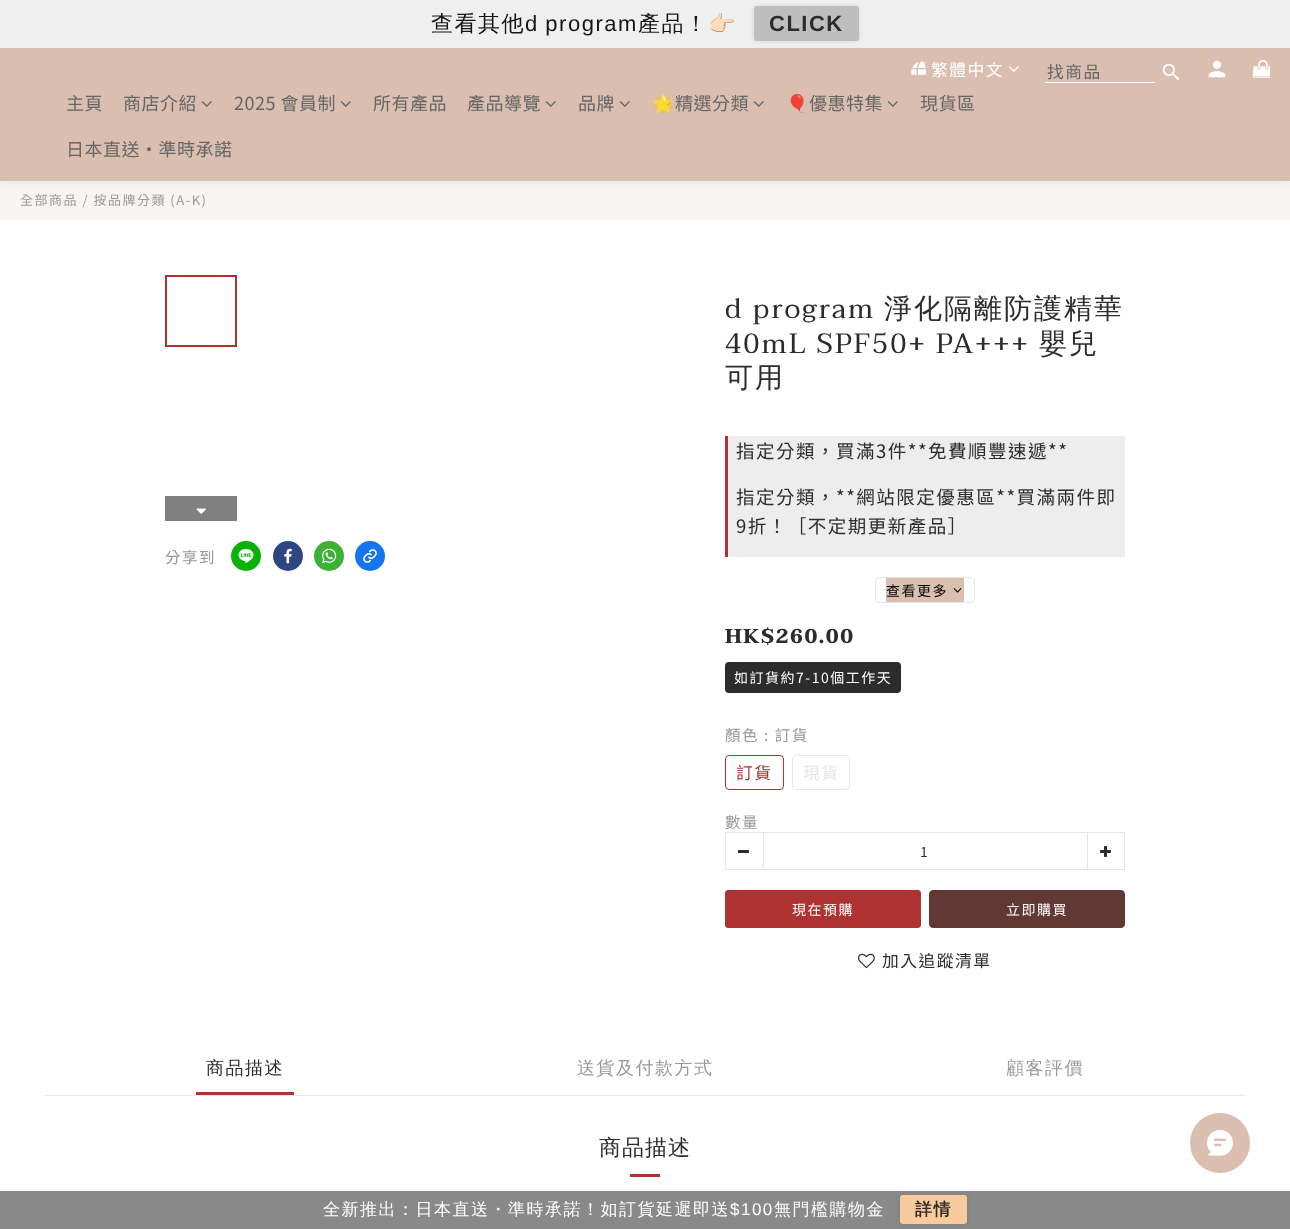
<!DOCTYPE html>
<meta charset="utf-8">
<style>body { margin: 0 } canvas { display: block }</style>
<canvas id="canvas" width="1290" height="1229"></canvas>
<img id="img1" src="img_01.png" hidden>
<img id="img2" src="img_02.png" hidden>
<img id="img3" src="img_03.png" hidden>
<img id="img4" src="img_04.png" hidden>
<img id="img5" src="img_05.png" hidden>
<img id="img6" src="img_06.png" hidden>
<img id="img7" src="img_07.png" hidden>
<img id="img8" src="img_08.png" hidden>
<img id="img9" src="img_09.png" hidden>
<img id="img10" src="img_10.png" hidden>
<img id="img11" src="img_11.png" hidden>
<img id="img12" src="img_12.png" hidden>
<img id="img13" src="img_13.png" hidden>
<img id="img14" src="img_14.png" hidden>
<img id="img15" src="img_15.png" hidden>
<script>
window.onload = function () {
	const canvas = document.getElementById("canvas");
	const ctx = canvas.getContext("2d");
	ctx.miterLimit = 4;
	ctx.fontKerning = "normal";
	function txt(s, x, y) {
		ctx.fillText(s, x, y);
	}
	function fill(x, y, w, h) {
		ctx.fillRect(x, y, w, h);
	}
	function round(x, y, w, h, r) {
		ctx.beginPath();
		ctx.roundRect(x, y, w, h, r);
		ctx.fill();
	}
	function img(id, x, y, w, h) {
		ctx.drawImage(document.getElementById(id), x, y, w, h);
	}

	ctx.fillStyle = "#FFFFFF";
	fill(0, 0, 1290, 1229);
	ctx.fillStyle = "#F8F4F1";
	fill(0, 181, 1290, 39);
	ctx.fillStyle = "rgba(0, 0, 0, 0.06)";
	ctx.filter = "blur(3px)";
	ctx.beginPath();
	ctx.rect(0, 50, 1290, 133);
	ctx.fill();
	ctx.filter = "none";
	ctx.fillStyle = "rgba(235, 235, 235, 0.8)";
	fill(0, 0, 1290, 48);
	ctx.fillStyle = "#DABEB0";
	fill(0, 48, 1290, 133);
	ctx.save();
	ctx.beginPath();
	ctx.moveTo(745, 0);
	ctx.lineTo(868, 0);
	ctx.lineTo(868, 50);
	ctx.lineTo(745, 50);
	ctx.closePath();
	ctx.moveTo(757, 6);
	ctx.lineTo(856, 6);
	ctx.bezierCurveTo(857.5, 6, 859, 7.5, 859, 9);
	ctx.lineTo(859, 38);
	ctx.bezierCurveTo(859, 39.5, 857.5, 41, 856, 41);
	ctx.lineTo(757, 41);
	ctx.bezierCurveTo(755.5, 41, 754, 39.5, 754, 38);
	ctx.lineTo(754, 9);
	ctx.bezierCurveTo(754, 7.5, 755.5, 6, 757, 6);
	ctx.closePath();
	ctx.clip("evenodd");
	ctx.fillStyle = "rgba(0, 0, 0, 0.1)";
	ctx.filter = "blur(2.5px)";
	ctx.beginPath();
	ctx.roundRect(754, 6, 105, 35, 3);
	ctx.fill();
	ctx.filter = "none";
	ctx.restore();
	ctx.fillStyle = "rgba(177, 177, 177, 0.8)";
	round(754, 6, 105, 35, 3);
	img("img1", 911, 61, 15, 14);
	img("img2", 1008, 66, 11, 6);
	ctx.fillStyle = "#FFFFFF";
	fill(1045, 82, 110, 1);
	img("img3", 1162, 63, 18, 18);
	img("img4", 1208, 60, 18, 18);
	img("img5", 1252, 60, 18, 18);
	img("img6", 201, 101, 11, 6);
	img("img6", 340, 101, 11, 6);
	img("img6", 545, 101, 11, 6);
	img("img6", 619, 101, 11, 6);
	img("img6", 753, 101, 11, 6);
	img("img6", 887, 101, 11, 6);
	ctx.strokeStyle = "#AE3232";
	ctx.lineWidth = 2;
	ctx.strokeRect(166, 276, 70, 70);
	ctx.fillStyle = "#808080";
	fill(165, 496, 72, 25);
	img("img7", 196, 508, 10, 6);
	ctx.fillStyle = "#09B305";
	ctx.beginPath();
	ctx.arc(246, 556, 15, 0, Math.PI * 2);
	ctx.fill();
	img("img8", 238, 548, 16, 16);
	ctx.fillStyle = "#2D4682";
	ctx.beginPath();
	ctx.arc(288, 556, 15, 0, Math.PI * 2);
	ctx.fill();
	img("img9", 284, 548, 8, 16);
	ctx.fillStyle = "#3CB136";
	ctx.beginPath();
	ctx.arc(329, 556, 15, 0, Math.PI * 2);
	ctx.fill();
	img("img10", 321, 548, 16, 16);
	ctx.fillStyle = "#1575F0";
	ctx.beginPath();
	ctx.arc(370, 556, 15, 0, Math.PI * 2);
	ctx.fill();
	img("img11", 363, 549, 14, 14);
	ctx.fillStyle = "#EDEDED";
	fill(728, 436, 397, 121);
	ctx.fillStyle = "#AE3232";
	fill(725, 436, 3, 121);
	ctx.beginPath();
	ctx.roundRect(875.5, 577.5, 99, 25, 3.5);
	ctx.strokeStyle = "#E6E6E6";
	ctx.lineWidth = 1;
	ctx.stroke();
	ctx.fillStyle = "#DABEB0";
	fill(886, 578, 78, 24);
	img("img12", 953, 588, 9, 5);
	ctx.fillStyle = "#2C2C2C";
	round(725, 662, 176, 31, 4);
	ctx.beginPath();
	ctx.roundRect(725.5, 755.5, 58, 34, 3.5);
	ctx.strokeStyle = "#AE3232";
	ctx.stroke();
	ctx.beginPath();
	ctx.roundRect(792.5, 755.5, 57, 34, 3.5);
	ctx.strokeStyle = "#E6E6E6";
	ctx.stroke();
	ctx.fillStyle = "#E6E6E6";
	fill(763, 832, 325, 1);
	fill(763, 869, 325, 1);
	ctx.strokeRect(725.5, 832.5, 38, 37);
	ctx.fillStyle = "#2C2C2C";
	fill(738, 850, 11, 3);
	ctx.strokeRect(1087.5, 832.5, 37, 37);
	img("img13", 1100, 846, 11, 11);
	ctx.fillStyle = "#AE3232";
	ctx.beginPath();
	ctx.roundRect(725.5, 890.5, 195, 37, 2.5);
	ctx.fill();
	ctx.strokeStyle = "#AE3232";
	ctx.stroke();
	ctx.fillStyle = "#613834";
	ctx.beginPath();
	ctx.roundRect(929.5, 890.5, 195, 37, 3.5);
	ctx.fill();
	ctx.strokeStyle = "#613834";
	ctx.stroke();
	img("img14", 858, 953, 17, 16);
	ctx.fillStyle = "#E6E6E6";
	fill(45, 1095, 1200, 1);
	ctx.fillStyle = "#AE3232";
	fill(196, 1092, 98, 3);
	fill(630, 1174, 30, 3);
	ctx.fillStyle = "#DABEB0";
	ctx.beginPath();
	ctx.arc(1220, 1143, 30, 0, Math.PI * 2);
	ctx.fill();
	img("img15", 1207, 1130, 26, 26);
	ctx.fillStyle = "#898989";
	fill(0, 1191, 1290, 38);
	ctx.fillStyle = "rgba(0, 0, 0, 0.1)";
	ctx.filter = "blur(2.5px)";
	ctx.beginPath();
	ctx.roundRect(900, 1195, 67, 29, 3);
	ctx.fill();
	ctx.filter = "none";
	ctx.fillStyle = "#F9CB9C";
	round(900, 1195, 67, 29, 3);
	ctx.letterSpacing = "1.5px";
	ctx.font = "500 22px WenQuanYi Zen Hei";
	ctx.fillStyle = "#141414";
	txt("查看其他", 431, 31);
	ctx.wordSpacing = "-1px";
	ctx.font = "22px Liberation Sans";
	txt("d program", 525, 31);
	ctx.wordSpacing = "0px";
	ctx.font = "500 22px WenQuanYi Zen Hei";
	txt("產品！", 638, 31);
	ctx.font = "22px Noto Color Emoji";
	txt("👉🏻", 708, 31);
	ctx.font = "bold 22px Liberation Sans";
	ctx.fillStyle = "#2C2C2C";
	txt("CLICK", 769, 31);
	ctx.font = "16.75px Noto Sans TC";
	ctx.fillStyle = "#FFFFFF";
	txt("繁體中文", 931, 76);
	ctx.fillStyle = "#666666";
	txt("找商品", 1047, 78);
	ctx.letterSpacing = "0.5px";
	ctx.font = "18px Noto Sans TC";
	txt("主頁", 66, 110);
	txt("商店介紹", 123, 110);
	txt("2025 會員制", 234, 110);
	txt("所有產品", 373, 110);
	txt("產品導覽", 467, 110);
	txt("品牌", 578, 110);
	ctx.font = "18px Noto Color Emoji";
	txt("🌟", 652, 110);
	ctx.font = "18px Noto Sans TC";
	txt("精選分類", 675, 110);
	ctx.font = "18px Noto Color Emoji";
	txt("🎈", 786, 110);
	ctx.font = "18px Noto Sans TC";
	txt("優惠特集", 809, 110);
	txt("現貨區", 920, 110);
	txt("日本直送・準時承諾", 66, 156);
	ctx.letterSpacing = "1.5px";
	ctx.font = "13px Noto Sans TC";
	ctx.fillStyle = "#999999";
	txt("全部商品 / 按品牌分類 (A-K)", 20, 205);
	ctx.font = "15.5px Noto Sans TC";
	txt("分享到", 165, 563);
	ctx.letterSpacing = "2px";
	ctx.font = "28px Taviraj";
	ctx.fillStyle = "#2C2C2C";
	txt("d program", 725, 318);
	ctx.font = "500 28px WenQuanYi Zen Hei";
	txt("淨化隔離防護精華", 884, 318);
	ctx.font = "28px Taviraj";
	txt("40mL SPF50+ PA+++", 725, 353);
	ctx.font = "500 28px WenQuanYi Zen Hei";
	txt("嬰兒", 1039, 353);
	txt("可用", 725, 387);
	ctx.letterSpacing = "1.5px";
	ctx.font = "18.5px Noto Sans TC";
	txt("指定分類，買滿3件**免費順豐速遞**", 736, 458);
	txt("指定分類，**網站限定優惠區**買滿兩件即", 736, 504);
	txt("9折！［不定期更新產品］", 736, 533);
	ctx.font = "14px Noto Sans TC";
	ctx.fillStyle = "#000000";
	txt("查看更多", 886, 596);
	ctx.font = "bold 20px Taviraj";
	ctx.fillStyle = "#2C2C2C";
	txt("HK$260.00", 725, 643);
	ctx.font = "14px Noto Sans TC";
	ctx.fillStyle = "#FFFFFF";
	txt("如訂貨約7-10個工作天", 734, 683);
	ctx.font = "15.5px Noto Sans TC";
	ctx.fillStyle = "#999999";
	txt("顏色 : 訂貨", 725, 741);
	ctx.font = "16.75px Noto Sans TC";
	ctx.fillStyle = "#AE3232";
	txt("訂貨", 736, 779);
	ctx.fillStyle = "#E6E6E6";
	txt("現貨", 803, 779);
	ctx.font = "15.5px Noto Sans TC";
	ctx.fillStyle = "#999999";
	txt("數量", 725, 828);
	ctx.font = "14px Noto Sans TC";
	ctx.fillStyle = "#2C2C2C";
	txt("1", 920, 857);
	ctx.fillStyle = "#FFFFFF";
	txt("現在預購", 792, 915);
	txt("立即購買", 1006, 915);
	ctx.font = "16.75px Noto Sans TC";
	ctx.fillStyle = "#2C2C2C";
	txt("加入追蹤清單", 882, 967);
	ctx.font = "500 18px WenQuanYi Zen Hei";
	txt("商品描述", 206, 1074);
	ctx.fillStyle = "#999999";
	txt("送貨及付款方式", 577, 1074);
	txt("顧客評價", 1006, 1074);
	ctx.letterSpacing = "1px";
	ctx.font = "500 22px WenQuanYi Zen Hei";
	ctx.fillStyle = "#2C2C2C";
	txt("商品描述", 599, 1155);
	ctx.letterSpacing = "1.5px";
	ctx.font = "500 17px WenQuanYi Zen Hei";
	ctx.fillStyle = "#FFFFFF";
	txt("全新推出：日本直送・準時承諾！如訂貨延遲即送", 323, 1215);
	ctx.font = "17px Liberation Sans";
	txt("$100", 730, 1215);
	ctx.font = "500 17px WenQuanYi Zen Hei";
	txt("無門檻購物金", 774, 1215);
	ctx.font = "bold 17px WenQuanYi Zen Hei";
	ctx.fillStyle = "#2C2C2C";
	txt("詳情", 915, 1215);
};
</script>
